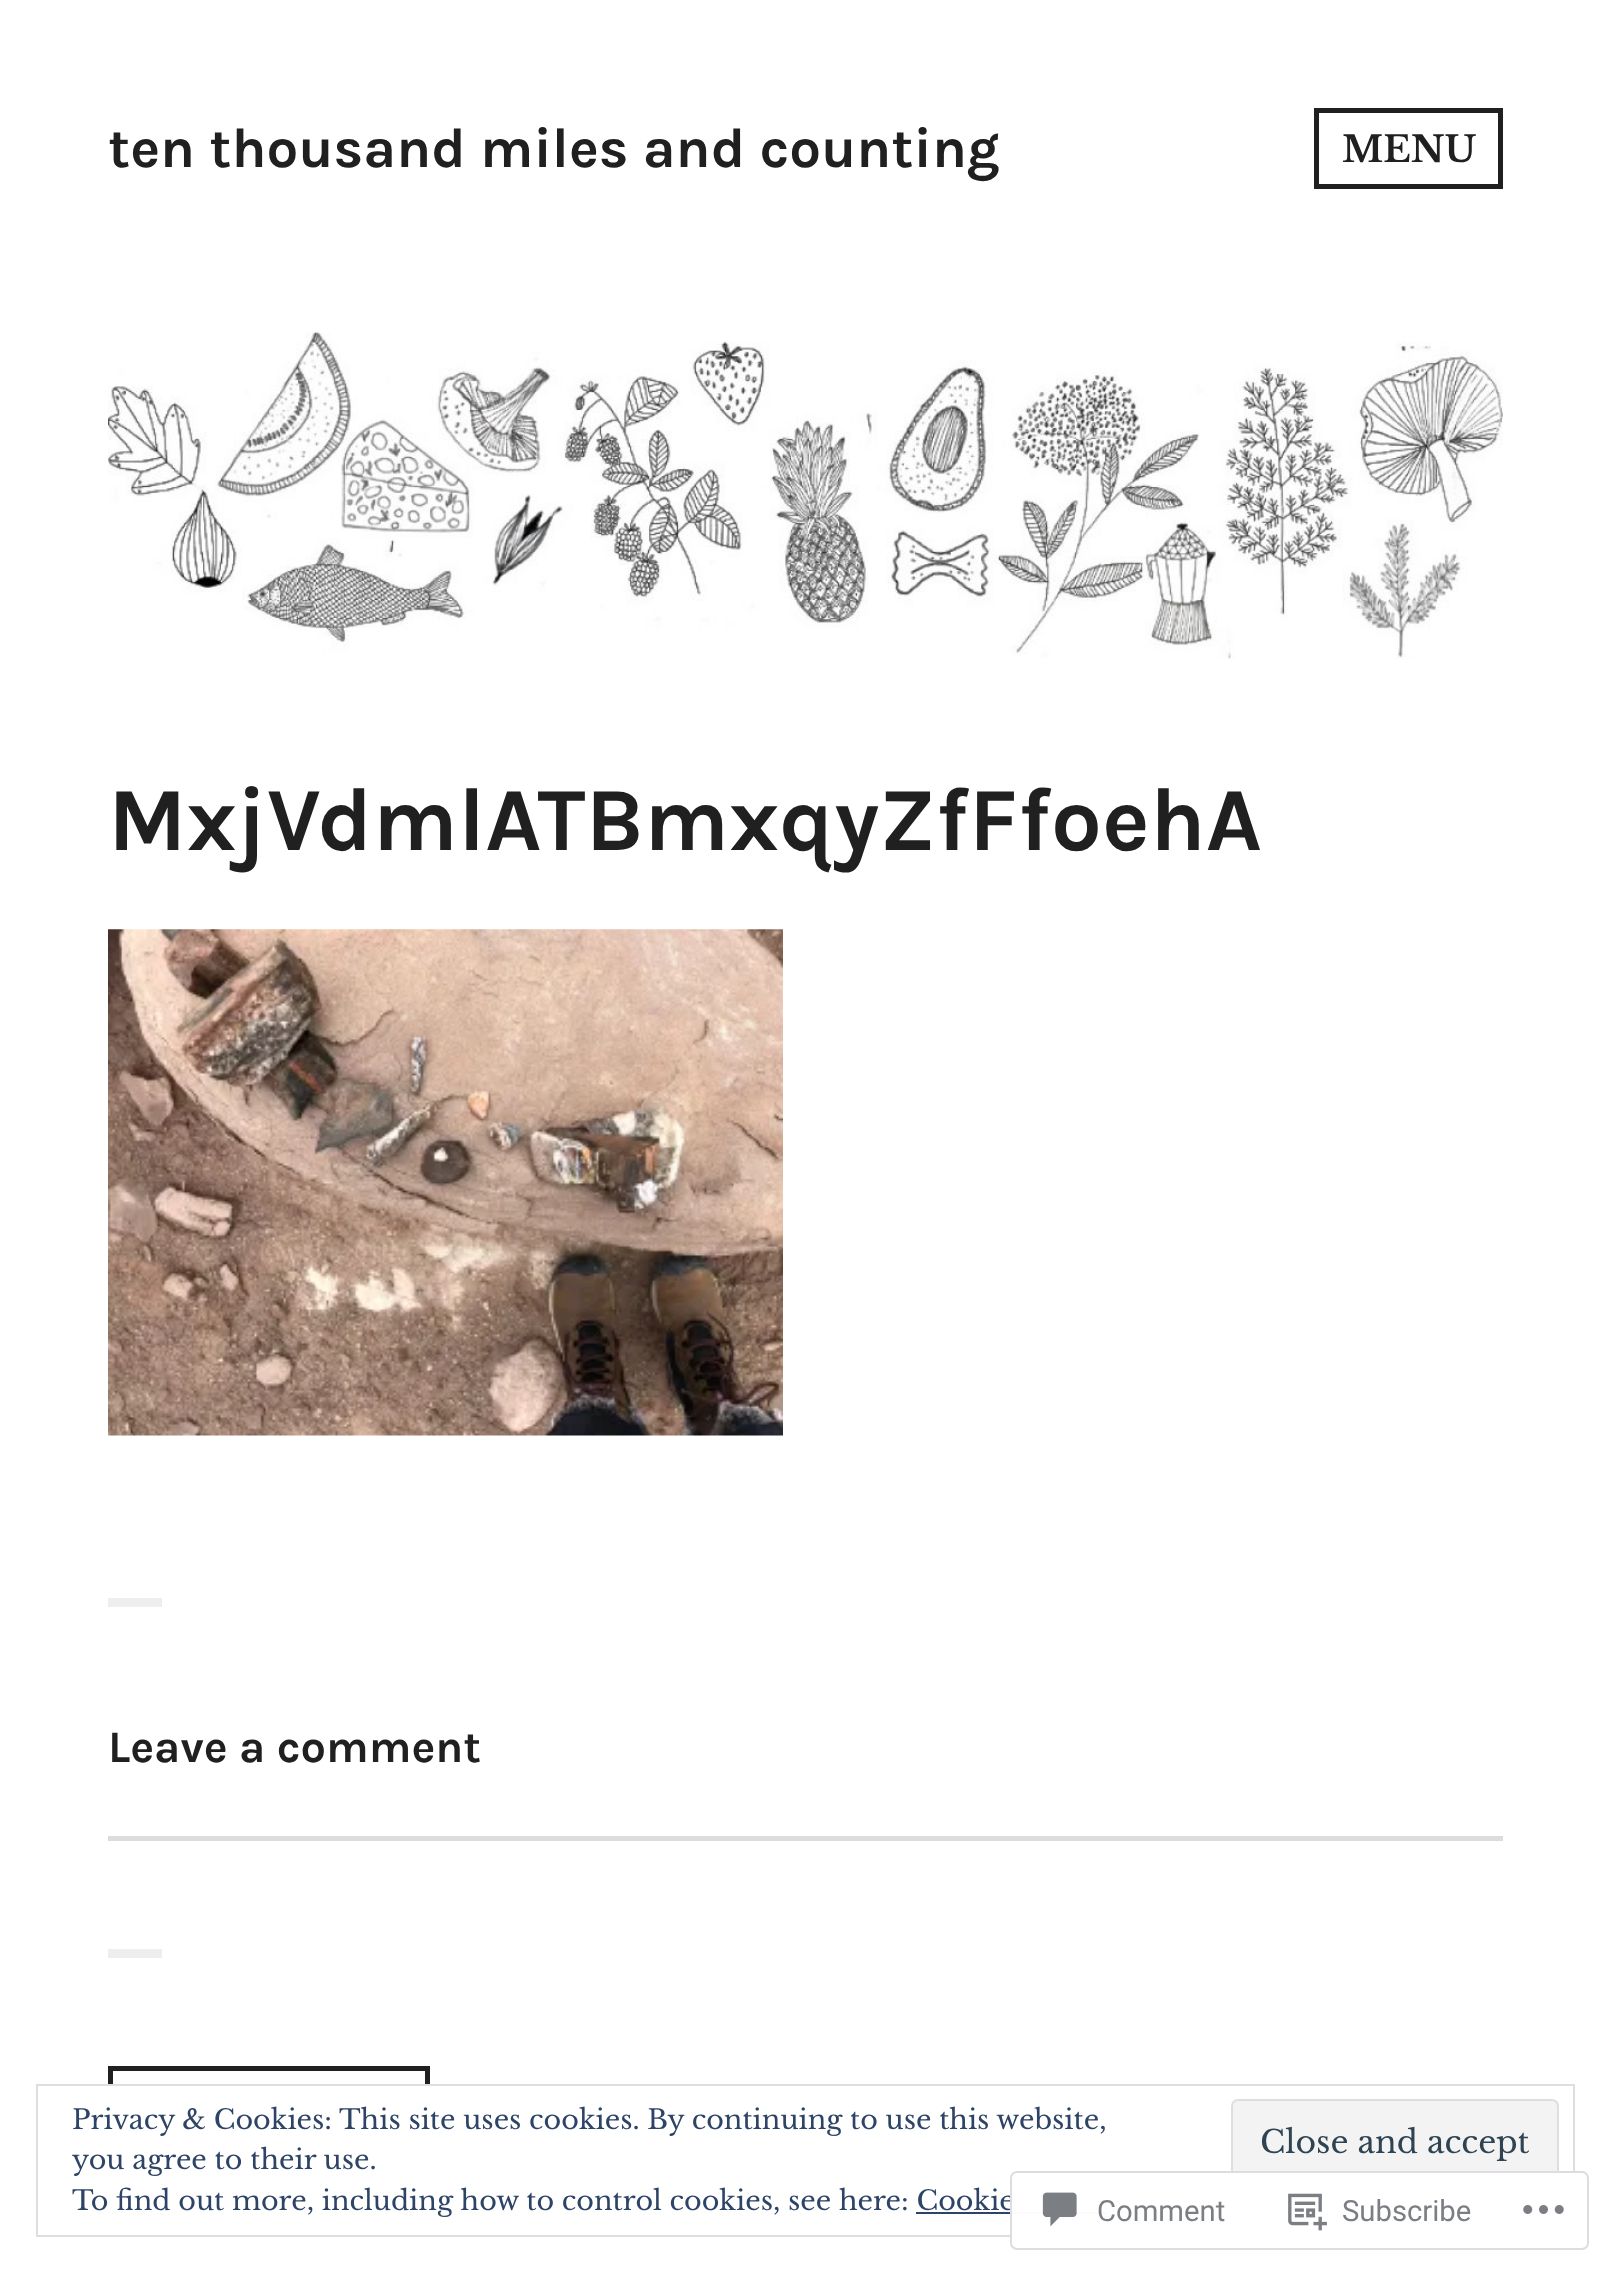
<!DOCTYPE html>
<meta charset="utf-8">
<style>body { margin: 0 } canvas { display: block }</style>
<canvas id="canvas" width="1610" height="2271"></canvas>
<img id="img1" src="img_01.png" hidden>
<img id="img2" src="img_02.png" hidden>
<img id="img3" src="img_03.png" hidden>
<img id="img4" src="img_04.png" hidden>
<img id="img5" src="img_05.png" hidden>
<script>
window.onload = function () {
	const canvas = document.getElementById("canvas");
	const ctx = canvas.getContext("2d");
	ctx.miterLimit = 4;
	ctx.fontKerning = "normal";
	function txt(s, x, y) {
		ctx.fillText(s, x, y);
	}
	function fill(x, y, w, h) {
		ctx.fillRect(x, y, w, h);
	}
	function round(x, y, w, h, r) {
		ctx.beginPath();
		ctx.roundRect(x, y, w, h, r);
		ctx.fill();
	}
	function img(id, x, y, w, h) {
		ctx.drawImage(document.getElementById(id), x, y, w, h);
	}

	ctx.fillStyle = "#FFFFFF";
	fill(0, 0, 1610, 2271);
	ctx.strokeStyle = "#202020";
	ctx.lineWidth = 5;
	ctx.strokeRect(1316.5, 110.5, 184, 76);
	img("img1", 108, 331, 1395, 329);
	img("img2", 108, 929, 675, 507);
	ctx.fillStyle = "#EEEEEE";
	fill(108, 1598, 54, 9);
	ctx.fillStyle = "#DCDCDE";
	fill(108, 1836, 1395, 5);
	ctx.fillStyle = "#EEEEEE";
	fill(108, 1949, 54, 9);
	ctx.strokeRect(110.5, 2068.5, 317, 130);
	ctx.fillStyle = "#FFFFFF";
	fill(108, 2086, 322, 115);
	ctx.strokeStyle = "#DEDEDE";
	ctx.lineWidth = 2;
	ctx.strokeRect(37, 2085, 1537, 151);
	ctx.fillStyle = "#F3F3F3";
	ctx.beginPath();
	ctx.roundRect(1232, 2100, 326, 86, 6);
	ctx.fill();
	ctx.stroke();
	ctx.fillStyle = "#2E4467";
	fill(916, 2212, 191, 2);
	ctx.font = "bold 56.25px Karla";
	ctx.fillStyle = "#202020";
	txt("ten thousand miles and counting", 108, 167);
	ctx.font = "bold 36px Libre Baskerville";
	txt("MENU", 1342, 162);
	ctx.font = "bold 90px Karla";
	txt("MxjVdmlATBmxqyZfFfoehA", 108, 850);
	ctx.font = "bold 45px Karla";
	txt("Leave a comment", 108, 1762);
	ctx.font = "27px Libre Baskerville";
	ctx.fillStyle = "#2E4467";
	txt("Privacy & Cookies: This site uses cookies. By continuing to use this website,", 72, 2129);
	txt("you agree to their use.", 72, 2169);
	ctx.font = "31.5px Libre Baskerville";
	ctx.fillStyle = "#2E4453";
	txt("Close and accept", 1260, 2153);
	ctx.font = "27px Libre Baskerville";
	ctx.fillStyle = "#2E4467";
	txt("To find out more, including how to control cookies, see here: Cookie", 72, 2210);
	ctx.fillStyle = "rgba(255, 255, 255, 0.98)";
	round(1010, 2171, 579, 79, 7);
	ctx.beginPath();
	ctx.roundRect(1011, 2172, 577, 77, 6);
	ctx.strokeStyle = "rgba(220, 220, 222, 0.98)";
	ctx.stroke();
	img("img3", 1042, 2192, 35, 35);
	ctx.font = "29.25px Roboto";
	ctx.fillStyle = "#7B7F84";
	txt("Comment", 1097, 2221);
	img("img4", 1288, 2193, 39, 38);
	txt("Subscribe", 1342, 2221);
	img("img5", 1523, 2205, 41, 9);
};
</script>
